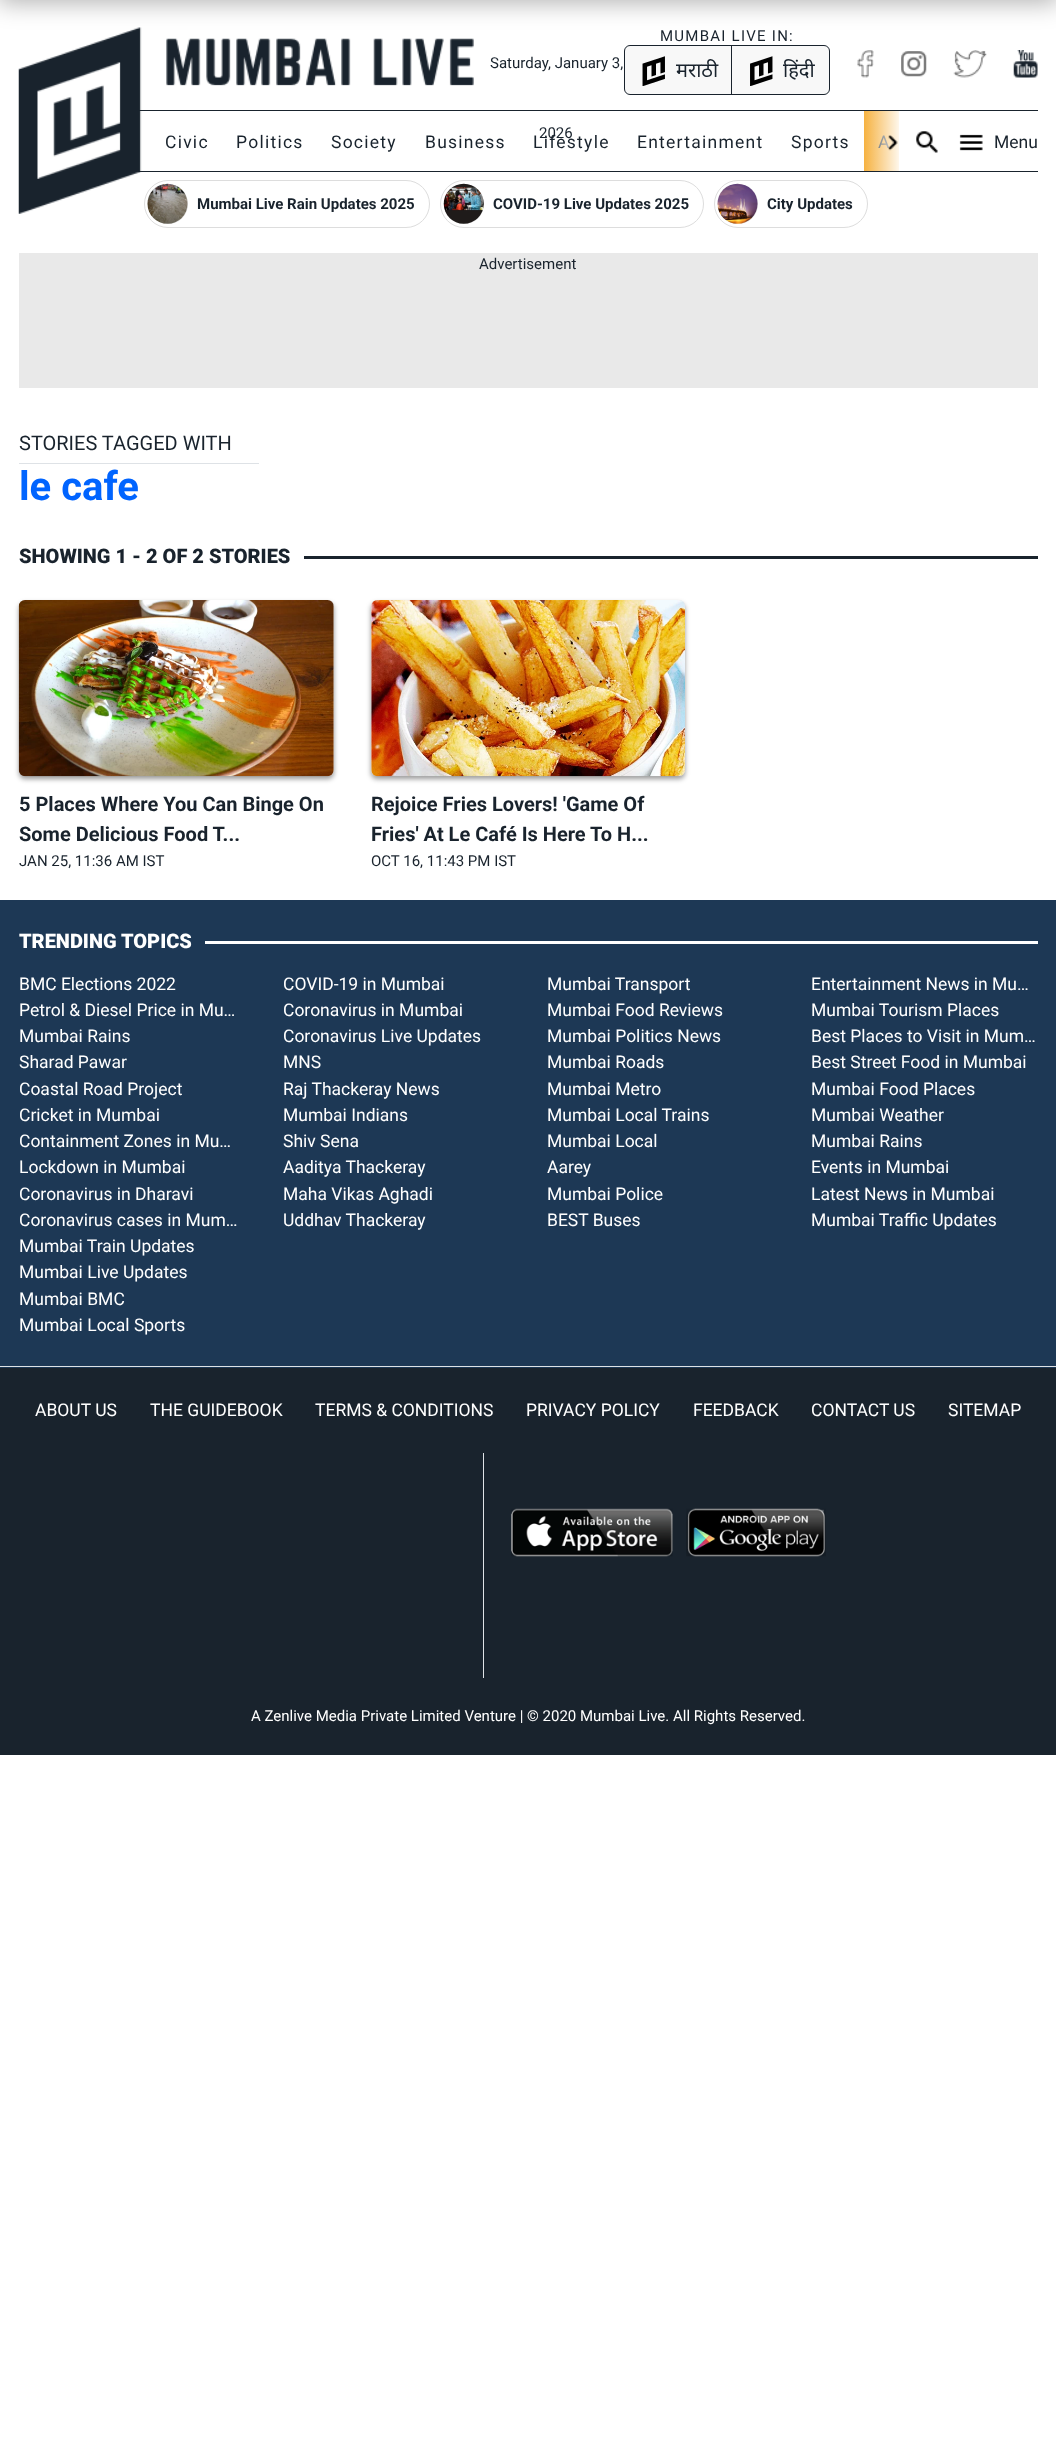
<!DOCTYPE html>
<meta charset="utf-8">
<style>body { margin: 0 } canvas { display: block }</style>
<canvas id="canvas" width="1056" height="2456"></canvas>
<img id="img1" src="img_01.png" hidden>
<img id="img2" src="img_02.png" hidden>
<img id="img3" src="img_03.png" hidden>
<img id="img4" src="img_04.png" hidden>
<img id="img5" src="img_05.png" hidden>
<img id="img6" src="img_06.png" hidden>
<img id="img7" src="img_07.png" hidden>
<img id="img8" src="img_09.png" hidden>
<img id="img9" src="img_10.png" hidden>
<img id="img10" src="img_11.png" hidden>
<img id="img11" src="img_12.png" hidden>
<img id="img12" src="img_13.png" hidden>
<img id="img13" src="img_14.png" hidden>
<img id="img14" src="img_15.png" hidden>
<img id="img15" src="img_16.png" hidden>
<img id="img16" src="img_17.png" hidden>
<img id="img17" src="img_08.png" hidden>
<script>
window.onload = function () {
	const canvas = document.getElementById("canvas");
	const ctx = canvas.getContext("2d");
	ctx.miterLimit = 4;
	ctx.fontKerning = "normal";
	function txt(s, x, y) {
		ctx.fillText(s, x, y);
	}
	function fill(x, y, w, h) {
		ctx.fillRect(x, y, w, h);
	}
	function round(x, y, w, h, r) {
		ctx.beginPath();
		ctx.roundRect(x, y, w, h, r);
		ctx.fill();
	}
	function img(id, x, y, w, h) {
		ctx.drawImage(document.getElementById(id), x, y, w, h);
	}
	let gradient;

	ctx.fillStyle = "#FFFFFF";
	fill(0, 0, 1056, 2456);
	img("img1", 18, 27, 456, 187);
	ctx.fillStyle = "rgba(0, 0, 0, 0.3)";
	ctx.filter = "blur(12.5px)";
	ctx.beginPath();
	ctx.rect(-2, -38, 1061, 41);
	ctx.fill();
	ctx.filter = "none";
	ctx.fillStyle = "#F8F8F8";
	ctx.beginPath();
	ctx.roundRect(624.5, 45.5, 205, 49, 5.5);
	ctx.fill();
	ctx.strokeStyle = "#19232D";
	ctx.stroke();
	ctx.fillStyle = "#19232D";
	fill(731, 46, 1, 49);
	img("img2", 642, 56, 23, 30);
	img("img3", 750, 56, 23, 30);
	img("img4", 857, 50, 17, 28);
	img("img5", 901, 51, 26, 26);
	img("img6", 953, 50, 34, 28);
	img("img7", 1013, 50, 25, 28);
	fill(138, 110, 900, 1);
	fill(138, 171, 900, 1);
	ctx.fillStyle = "#F5A623";
	fill(864, 111, 35, 60);
	img("img8", 916, 131, 22, 22);
	img("img9", 959, 134, 24, 17);
	ctx.beginPath();
	ctx.roundRect(144.5, 180.5, 285, 47, 23.5);
	ctx.strokeStyle = "#DDDDDD";
	ctx.stroke();
	ctx.fillStyle = "#DDDDDD";
	ctx.beginPath();
	ctx.arc(168, 204, 20, 0, Math.PI * 2);
	ctx.fill();
	img("img10", 147, 183, 41, 41);
	ctx.beginPath();
	ctx.roundRect(440.5, 180.5, 263, 47, 23.5);
	ctx.stroke();
	ctx.beginPath();
	ctx.arc(464, 204, 20, 0, Math.PI * 2);
	ctx.fill();
	img("img11", 443, 183, 41, 41);
	ctx.beginPath();
	ctx.roundRect(714.5, 180.5, 153, 47, 23.5);
	ctx.stroke();
	ctx.beginPath();
	ctx.arc(738, 204, 20, 0, Math.PI * 2);
	ctx.fill();
	img("img12", 717, 183, 41, 41);
	ctx.fillStyle = "#E9E9E9";
	fill(19, 253, 1019, 135);
	ctx.fillStyle = "#DEE2E6";
	fill(19, 463, 240, 1);
	ctx.fillStyle = "#19232D";
	fill(304, 556, 734, 3);
	ctx.fillStyle = "rgba(0, 0, 0, 0.4)";
	ctx.filter = "blur(2.5px)";
	ctx.beginPath();
	ctx.roundRect(19, 603, 315, 176, 6);
	ctx.fill();
	ctx.filter = "none";
	ctx.fillStyle = "#E9E9E9";
	round(19, 600, 315, 176, 6);
	img("img13", 18, 600, 316, 177);
	ctx.fillStyle = "rgba(0, 0, 0, 0.4)";
	ctx.filter = "blur(2.5px)";
	ctx.beginPath();
	ctx.roundRect(371, 603, 314, 176, 6);
	ctx.fill();
	ctx.filter = "none";
	ctx.fillStyle = "#E9E9E9";
	round(371, 600, 314, 176, 6);
	img("img14", 371, 600, 314, 177);
	ctx.fillStyle = "#1D3855";
	fill(0, 900, 1056, 468);
	ctx.fillStyle = "#DEE2E6";
	fill(0, 1366, 1056, 1);
	ctx.fillStyle = "#FFFFFF";
	fill(205, 941, 833, 3);
	ctx.fillStyle = "#19232D";
	fill(0, 1368, 1056, 387);
	ctx.fillStyle = "#DEE2E6";
	fill(483, 1453, 1, 225);
	img("img15", 511, 1508, 162, 49);
	img("img16", 686, 1508, 140, 49);
	ctx.font = "15px Roboto";
	ctx.fillStyle = "#19232D";
	txt("Saturday, January 3,", 490, 68);
	txt("2026", 539, 138);
	ctx.letterSpacing = "1.25px";
	txt("MUMBAI LIVE IN:", 660, 41);
	ctx.letterSpacing = "0px";
	ctx.font = "20px Noto Sans";
	txt("मराठी", 676, 77);
	txt("हिंदी", 783, 77);
	ctx.letterSpacing = "1.25px";
	ctx.font = "17.5px Roboto";
	txt("Civic", 165, 148);
	txt("Politics", 236, 148);
	txt("Society", 331, 148);
	txt("Business", 425, 148);
	txt("Lifestyle", 533, 148);
	txt("Entertainment", 637, 148);
	txt("Sports", 791, 148);
	txt("A", 878, 148);
	gradient = ctx.createLinearGradient(908, 141, 858, 141);
	gradient.addColorStop(0.1, "#FFFFFF");
	gradient.addColorStop(1, "rgba(255, 255, 255, 0)");
	ctx.fillStyle = gradient;
	fill(864, 111, 35, 60);
	img("img17", 888, 135, 10, 16);
	ctx.letterSpacing = "0px";
	ctx.fillStyle = "#19232D";
	txt("Menu", 994, 148);
	ctx.font = "bold 15px Roboto";
	txt("Mumbai Live Rain Updates 2025", 197, 209);
	txt("COVID-19 Live Updates 2025", 493, 209);
	txt("City Updates", 767, 209);
	ctx.font = "15px Roboto";
	txt("Advertisement", 479, 269);
	ctx.font = "20px Roboto";
	txt("STORIES TAGGED WITH", 19, 450);
	ctx.font = "bold 40px Roboto";
	ctx.fillStyle = "#0064FF";
	txt("le cafe", 19, 500);
	ctx.font = "900 20px Roboto";
	ctx.fillStyle = "#19232D";
	txt("SHOWING 1 - 2 OF 2 STORIES", 19, 563);
	ctx.font = "bold 20px Roboto";
	txt("5 Places Where You Can Binge On", 19, 811);
	txt("Some Delicious Food T...", 19, 841);
	ctx.font = "15px Roboto";
	txt("JAN 25, 11:36 AM IST", 19, 866);
	ctx.font = "bold 20px Roboto";
	txt("Rejoice Fries Lovers! 'Game Of", 371, 811);
	txt("Fries' At Le Café Is Here To H...", 371, 841);
	ctx.font = "15px Roboto";
	txt("OCT 16, 11:43 PM IST", 371, 866);
	ctx.font = "900 20px Roboto";
	ctx.fillStyle = "#FFFFFF";
	txt("TRENDING TOPICS", 19, 948);
	ctx.font = "17.5px Roboto";
	txt("BMC Elections 2022", 19, 990);
	txt("Petrol & Diesel Price in Mu…", 19, 1016);
	txt("Mumbai Rains", 19, 1042);
	txt("Sharad Pawar", 19, 1068);
	txt("Coastal Road Project", 19, 1095);
	txt("Cricket in Mumbai", 19, 1121);
	txt("Containment Zones in Mu…", 19, 1147);
	txt("Lockdown in Mumbai", 19, 1173);
	txt("Coronavirus in Dharavi", 19, 1200);
	txt("Coronavirus cases in Mum…", 19, 1226);
	txt("COVID-19 in Mumbai", 283, 990);
	txt("Coronavirus in Mumbai", 283, 1016);
	txt("Coronavirus Live Updates", 283, 1042);
	txt("MNS", 283, 1068);
	txt("Raj Thackeray News", 283, 1095);
	txt("Mumbai Indians", 283, 1121);
	txt("Shiv Sena", 283, 1147);
	txt("Aaditya Thackeray", 283, 1173);
	txt("Maha Vikas Aghadi", 283, 1200);
	txt("Uddhav Thackeray", 283, 1226);
	txt("Mumbai Transport", 547, 990);
	txt("Mumbai Food Reviews", 547, 1016);
	txt("Mumbai Politics News", 547, 1042);
	txt("Mumbai Roads", 547, 1068);
	txt("Mumbai Metro", 547, 1095);
	txt("Mumbai Local Trains", 547, 1121);
	txt("Mumbai Local", 547, 1147);
	txt("Aarey", 547, 1173);
	txt("Mumbai Police", 547, 1200);
	txt("BEST Buses", 547, 1226);
	txt("Entertainment News in Mu…", 811, 990);
	txt("Mumbai Tourism Places", 811, 1016);
	txt("Best Places to Visit in Mum…", 811, 1042);
	txt("Best Street Food in Mumbai", 811, 1068);
	txt("Mumbai Food Places", 811, 1095);
	txt("Mumbai Weather", 811, 1121);
	txt("Mumbai Rains", 811, 1147);
	txt("Events in Mumbai", 811, 1173);
	txt("Latest News in Mumbai", 811, 1200);
	txt("Mumbai Traffic Updates", 811, 1226);
	txt("Mumbai Train Updates", 19, 1252);
	txt("Mumbai Live Updates", 19, 1278);
	txt("Mumbai BMC", 19, 1305);
	txt("Mumbai Local Sports", 19, 1331);
	txt("ABOUT US", 35, 1416);
	txt("THE GUIDEBOOK", 150, 1416);
	txt("TERMS & CONDITIONS", 315, 1416);
	txt("PRIVACY POLICY", 526, 1416);
	txt("FEEDBACK", 693, 1416);
	txt("CONTACT US", 811, 1416);
	txt("SITEMAP", 948, 1416);
	ctx.font = "15px Roboto";
	txt("A Zenlive Media Private Limited Venture | © 2020 Mumbai Live. All Rights Reserved.", 251, 1721);
};
</script>
